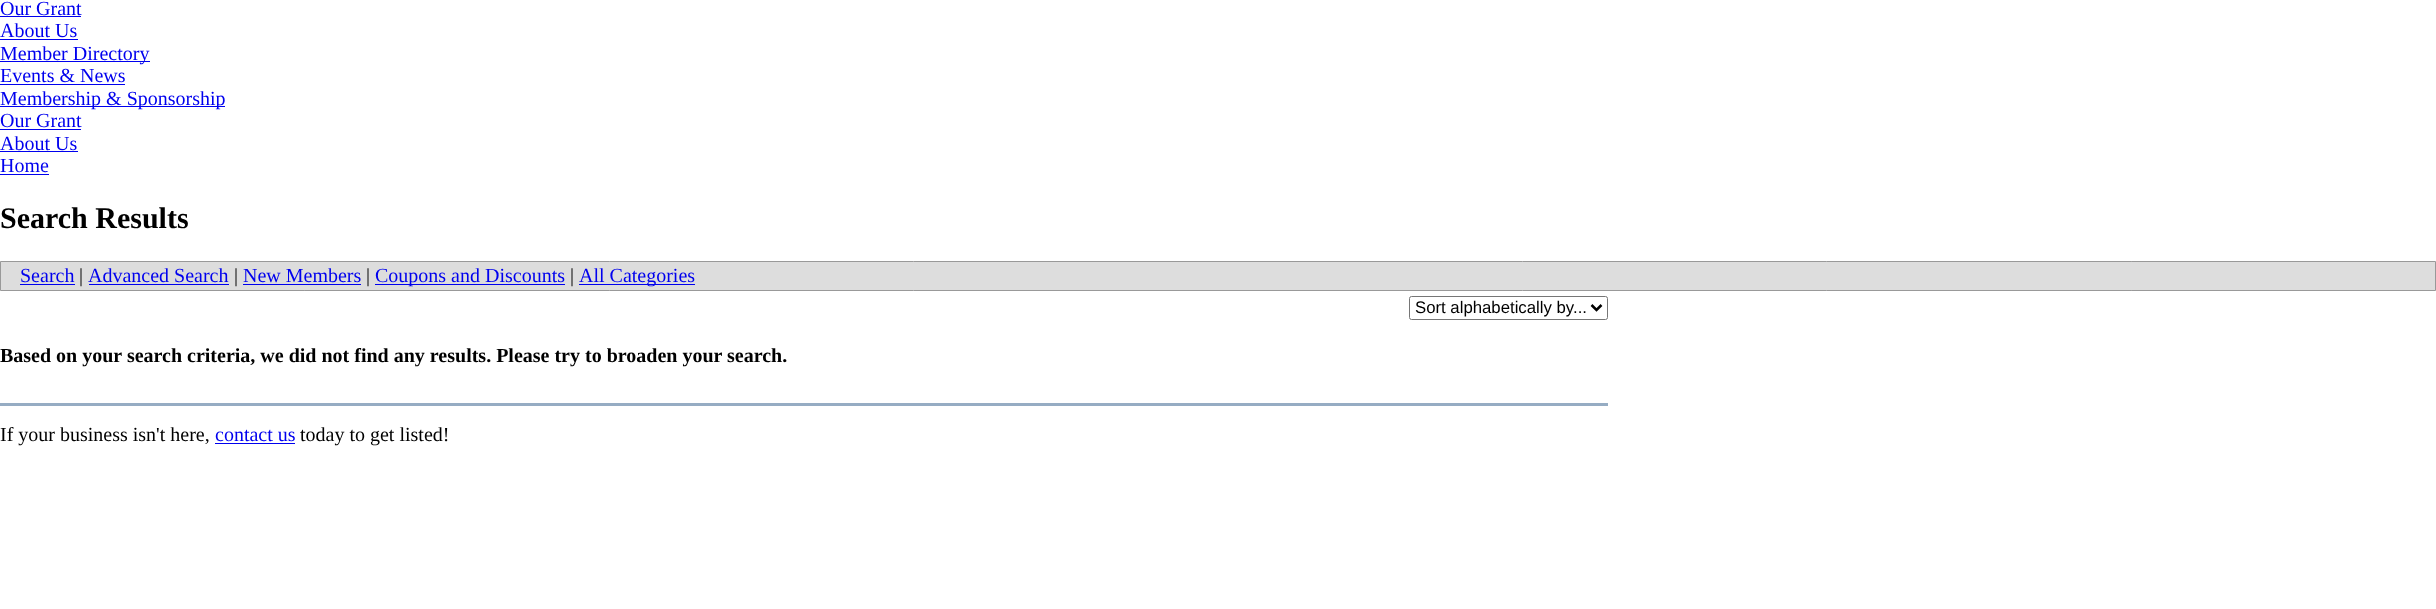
<!DOCTYPE html>
<meta charset="utf-8">
<style>body { margin: 0 } canvas { display: block }</style>
<canvas id="canvas" width="2436" height="609"></canvas>
<script>
window.onload = function () {
	const canvas = document.getElementById("canvas");
	const ctx = canvas.getContext("2d");
	ctx.miterLimit = 4;
	ctx.fontKerning = "normal";
	function txt(s, x, y) {
		ctx.fillText(s, x, y);
	}
	function fill(x, y, w, h) {
		ctx.fillRect(x, y, w, h);
	}

	ctx.fillStyle = "#FFFFFF";
	fill(0, 0, 2436, 609);
	ctx.fillStyle = "#0000EE";
	fill(0, 16, 81, 1);
	fill(0, 39, 78, 1);
	fill(0, 61, 150, 1);
	fill(0, 84, 125, 1);
	fill(0, 106, 225, 1);
	fill(0, 129, 81, 1);
	fill(0, 151, 78, 1);
	fill(0, 174, 49, 1);
	ctx.fillStyle = "#DDDDDD";
	ctx.beginPath();
	ctx.rect(0.5, 261.5, 2435, 29);
	ctx.fill();
	ctx.strokeStyle = "#999999";
	ctx.stroke();
	ctx.fillStyle = "#0000EE";
	fill(20, 284, 55, 1);
	fill(89, 284, 140, 1);
	fill(243, 284, 118, 1);
	fill(375, 284, 190, 1);
	fill(579, 284, 116, 1);
	ctx.beginPath();
	ctx.roundRect(1409.5, 296.5, 198, 23, 2);
	ctx.strokeStyle = "#767676";
	ctx.stroke();
	ctx.beginPath();
	ctx.moveTo(1591.5, 305);
	ctx.lineTo(1596.5, 310);
	ctx.lineTo(1601.5, 305);
	ctx.strokeStyle = "#000000";
	ctx.lineWidth = 2.5;
	ctx.stroke();
	ctx.fillStyle = "#96ACC3";
	fill(0, 403, 1608, 3);
	ctx.fillStyle = "#0000EE";
	fill(215, 443, 80, 1);
	ctx.font = "20px Liberation Serif";
	txt("Our Grant", 0, 15);
	txt("About Us", 0, 37);
	txt("Member Directory", 0, 60);
	txt("Events & News", 0, 82);
	txt("Membership & Sponsorship", 0, 105);
	txt("Our Grant", 0, 127);
	txt("About Us", 0, 150);
	txt("Home", 0, 172);
	ctx.font = "bold 30px Liberation Serif";
	ctx.fillStyle = "#000000";
	txt("Search Results", 0, 228);
	ctx.font = "20px Liberation Serif";
	ctx.fillStyle = "#0000EE";
	txt("Search", 20, 282);
	ctx.fillStyle = "#000000";
	txt("|", 79, 282);
	ctx.fillStyle = "#0000EE";
	txt("Advanced Search", 88, 282);
	ctx.fillStyle = "#000000";
	txt("|", 234, 282);
	ctx.fillStyle = "#0000EE";
	txt("New Members", 243, 282);
	ctx.fillStyle = "#000000";
	txt("|", 366, 282);
	ctx.fillStyle = "#0000EE";
	txt("Coupons and Discounts", 375, 282);
	ctx.fillStyle = "#000000";
	txt("|", 570, 282);
	ctx.fillStyle = "#0000EE";
	txt("All Categories", 579, 282);
	ctx.font = "16.75px Liberation Sans";
	ctx.fillStyle = "#000000";
	txt("Sort alphabetically by...", 1415, 313);
	ctx.font = "bold 20px Liberation Serif";
	txt("Based on your search criteria, we did not find any results. Please try to broaden your search.", 0, 362);
	ctx.font = "20px Liberation Serif";
	txt("If your business isn't here,", 0, 441);
	ctx.fillStyle = "#0000EE";
	txt("contact us", 215, 441);
	ctx.fillStyle = "#000000";
	txt("today to get listed!", 300, 441);
};
</script>
